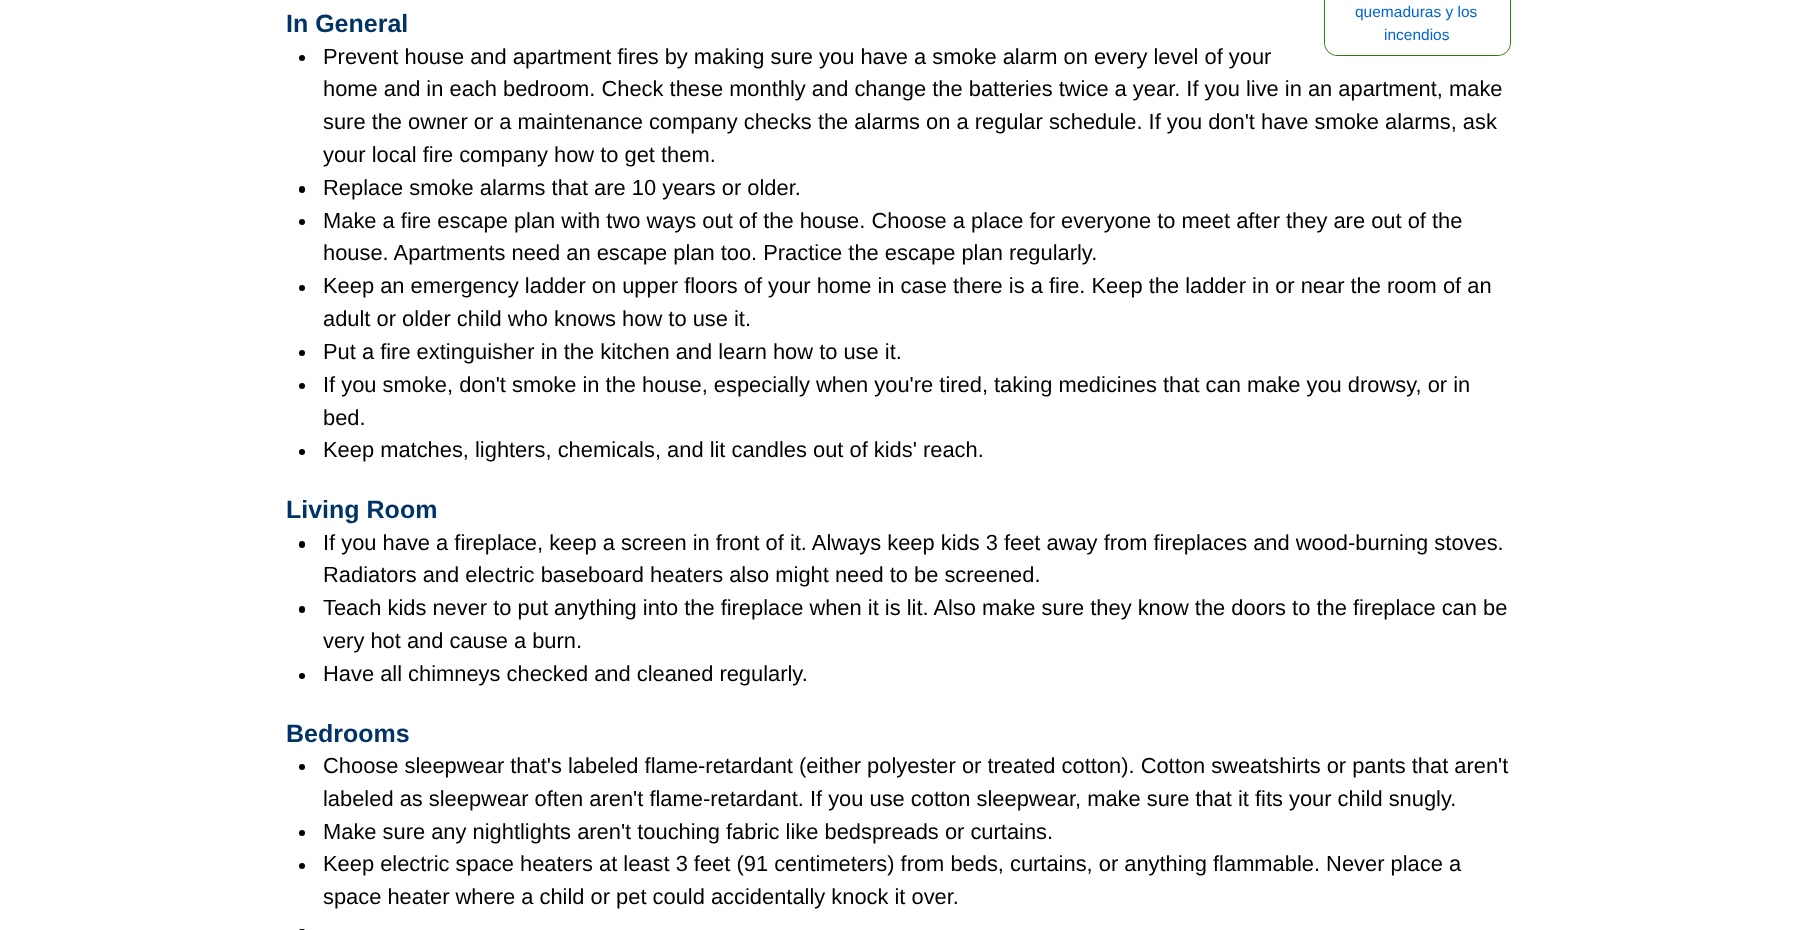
<!DOCTYPE html>
<meta charset="utf-8">
<style>body { margin: 0 } canvas { display: block }</style>
<canvas id="canvas" width="1796" height="930"></canvas>
<script>
window.onload = function () {
	const canvas = document.getElementById("canvas");
	const ctx = canvas.getContext("2d");
	ctx.miterLimit = 4;
	ctx.fontKerning = "normal";
	function txt(s, x, y) {
		ctx.fillText(s, x, y);
	}
	function fill(x, y, w, h) {
		ctx.fillRect(x, y, w, h);
	}
	function round(x, y, w, h, r) {
		ctx.beginPath();
		ctx.roundRect(x, y, w, h, r);
		ctx.fill();
	}

	ctx.fillStyle = "#FFFFFF";
	fill(0, 0, 1796, 930);
	ctx.beginPath();
	ctx.roundRect(1324.5, -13.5, 186, 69, 12.5);
	ctx.strokeStyle = "#2E7D0D";
	ctx.stroke();
	ctx.beginPath();
	ctx.moveTo(1325, -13);
	ctx.lineTo(1510, -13);
	ctx.lineTo(1510, 42);
	ctx.bezierCurveTo(1510, 49, 1504, 55, 1497, 55);
	ctx.lineTo(1338, 55);
	ctx.bezierCurveTo(1331, 55, 1325, 49, 1325, 42);
	ctx.closePath();
	ctx.fill();
	ctx.fillStyle = "#000000";
	ctx.beginPath();
	ctx.arc(302, 58, 3, 0, Math.PI * 2);
	ctx.fill();
	round(299, 186, 6, 7, 3);
	ctx.beginPath();
	ctx.arc(302, 222, 3, 0, Math.PI * 2);
	ctx.fill();
	ctx.beginPath();
	ctx.arc(302, 288, 3, 0, Math.PI * 2);
	ctx.fill();
	ctx.beginPath();
	ctx.arc(302, 353, 3, 0, Math.PI * 2);
	ctx.fill();
	ctx.beginPath();
	ctx.arc(302, 386, 3, 0, Math.PI * 2);
	ctx.fill();
	ctx.beginPath();
	ctx.arc(302, 452, 3, 0, Math.PI * 2);
	ctx.fill();
	round(299, 541, 6, 7, 3);
	round(299, 606, 6, 7, 3);
	ctx.beginPath();
	ctx.arc(302, 676, 3, 0, Math.PI * 2);
	ctx.fill();
	ctx.beginPath();
	ctx.arc(302, 767, 3, 0, Math.PI * 2);
	ctx.fill();
	ctx.beginPath();
	ctx.arc(302, 833, 3, 0, Math.PI * 2);
	ctx.fill();
	ctx.beginPath();
	ctx.arc(302, 866, 3, 0, Math.PI * 2);
	ctx.fill();
	round(299, 929, 6, 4, 3);
	ctx.font = "15.5px Liberation Sans";
	ctx.fillStyle = "#0066CC";
	txt("quemaduras y los", 1355, 17);
	txt("incendios", 1384, 40);
	ctx.font = "bold 25px Liberation Sans";
	ctx.fillStyle = "#003366";
	txt("In General", 286, 32);
	ctx.font = "21.88px Liberation Sans";
	ctx.fillStyle = "#000000";
	txt("Prevent house and apartment fires by making sure you have a smoke alarm on every level of your", 323, 64);
	txt("home and in each bedroom. Check these monthly and change the batteries twice a year. If you live in an apartment, make", 323, 96);
	txt("sure the owner or a maintenance company checks the alarms on a regular schedule. If you don't have smoke alarms, ask", 323, 129);
	txt("your local fire company how to get them.", 323, 162);
	txt("Replace smoke alarms that are 10 years or older.", 323, 195);
	txt("Make a fire escape plan with two ways out of the house. Choose a place for everyone to meet after they are out of the", 323, 228);
	txt("house. Apartments need an escape plan too. Practice the escape plan regularly.", 323, 260);
	txt("Keep an emergency ladder on upper floors of your home in case there is a fire. Keep the ladder in or near the room of an", 323, 293);
	txt("adult or older child who knows how to use it.", 323, 326);
	txt("Put a fire extinguisher in the kitchen and learn how to use it.", 323, 359);
	txt("If you smoke, don't smoke in the house, especially when you're tired, taking medicines that can make you drowsy, or in", 323, 392);
	txt("bed.", 323, 425);
	txt("Keep matches, lighters, chemicals, and lit candles out of kids' reach.", 323, 457);
	ctx.font = "bold 25px Liberation Sans";
	ctx.fillStyle = "#003366";
	txt("Living Room", 286, 518);
	ctx.font = "21.88px Liberation Sans";
	ctx.fillStyle = "#000000";
	txt("If you have a fireplace, keep a screen in front of it. Always keep kids 3 feet away from fireplaces and wood-burning stoves.", 323, 550);
	txt("Radiators and electric baseboard heaters also might need to be screened.", 323, 582);
	txt("Teach kids never to put anything into the fireplace when it is lit. Also make sure they know the doors to the fireplace can be", 323, 615);
	txt("very hot and cause a burn.", 323, 648);
	txt("Have all chimneys checked and cleaned regularly.", 323, 681);
	ctx.font = "bold 25px Liberation Sans";
	ctx.fillStyle = "#003366";
	txt("Bedrooms", 286, 742);
	ctx.font = "21.88px Liberation Sans";
	ctx.fillStyle = "#000000";
	txt("Choose sleepwear that's labeled flame-retardant (either polyester or treated cotton). Cotton sweatshirts or pants that aren't", 323, 773);
	txt("labeled as sleepwear often aren't flame-retardant. If you use cotton sleepwear, make sure that it fits your child snugly.", 323, 806);
	txt("Make sure any nightlights aren't touching fabric like bedspreads or curtains.", 323, 839);
	txt("Keep electric space heaters at least 3 feet (91 centimeters) from beds, curtains, or anything flammable. Never place a", 323, 871);
	txt("space heater where a child or pet could accidentally knock it over.", 323, 904);
};
</script>
